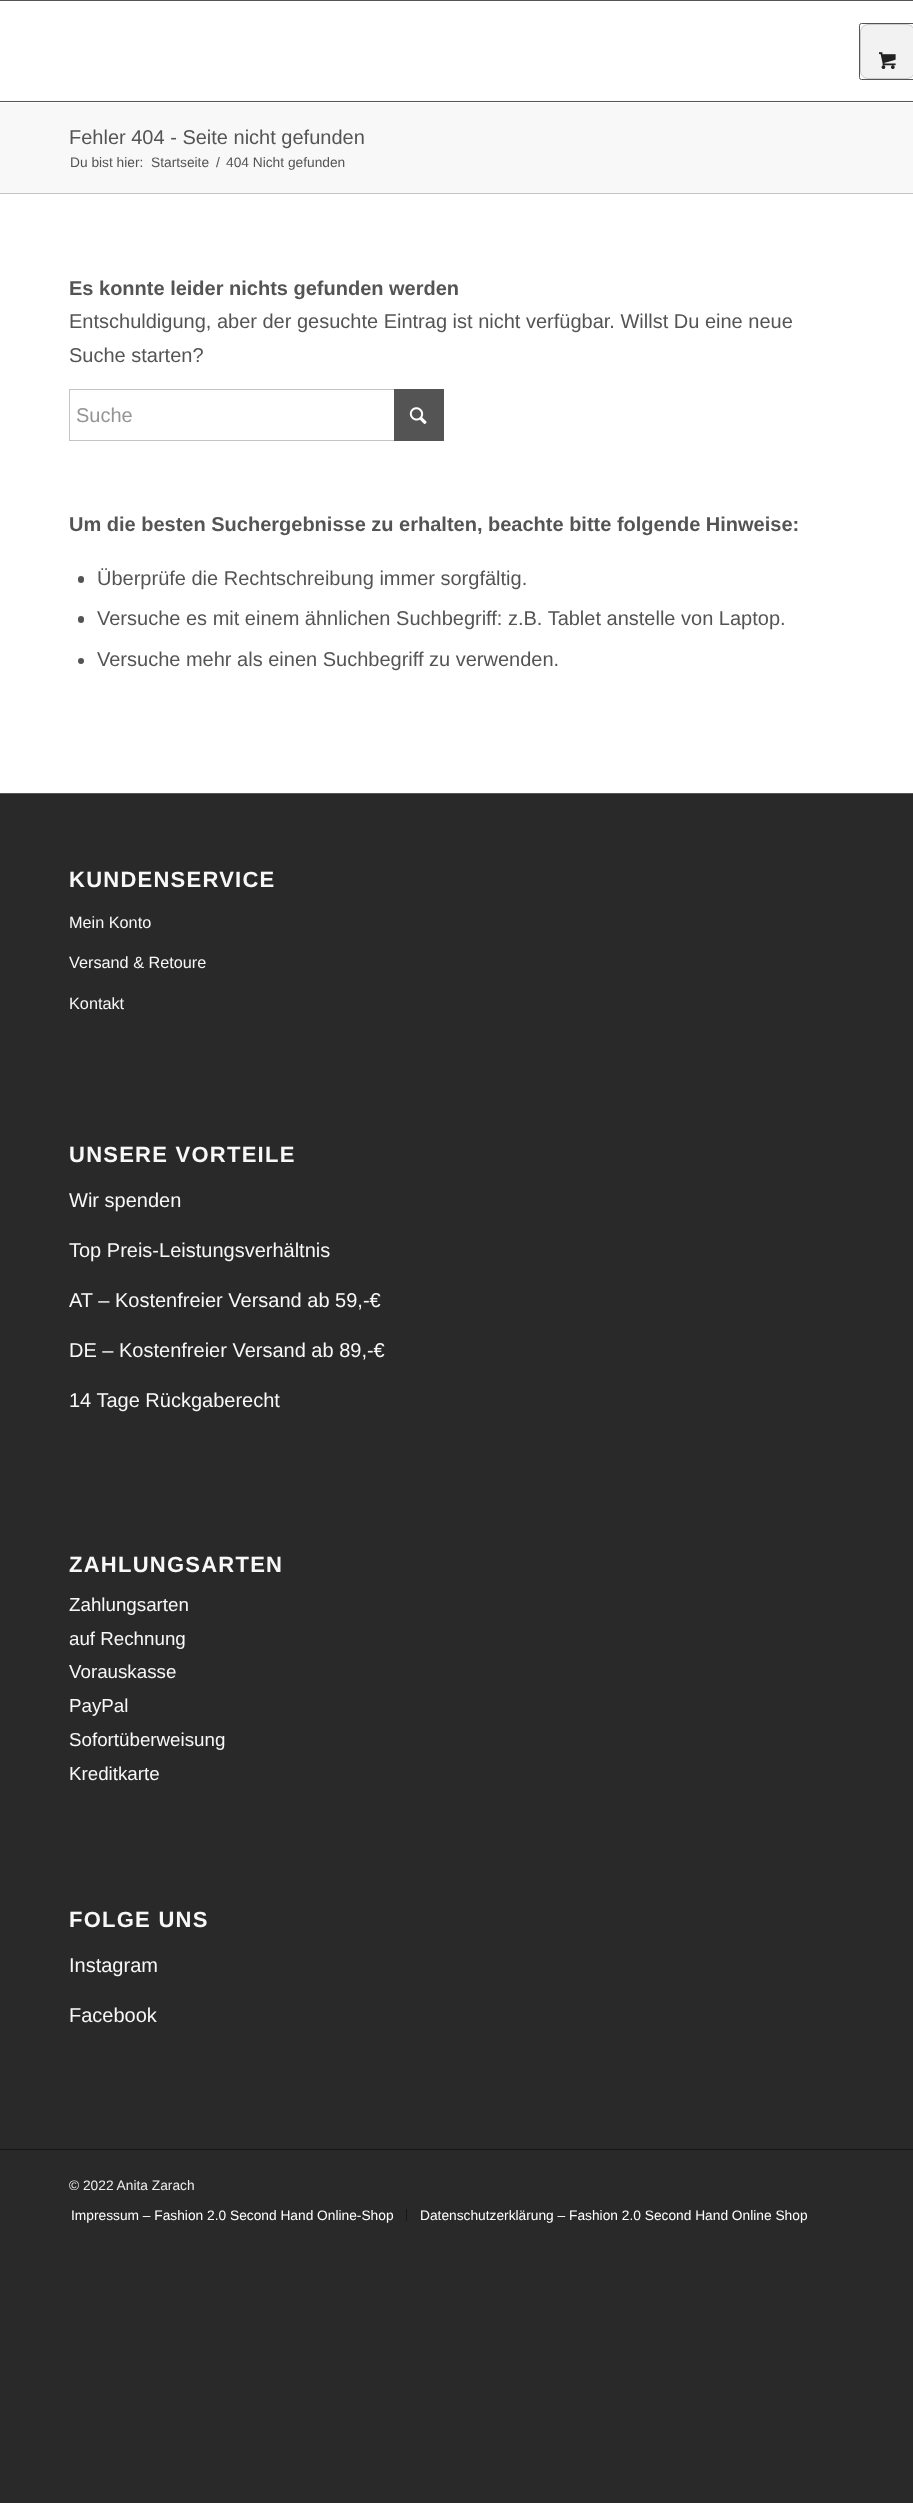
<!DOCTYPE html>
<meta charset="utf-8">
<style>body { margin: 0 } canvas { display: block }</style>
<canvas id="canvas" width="913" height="2503"></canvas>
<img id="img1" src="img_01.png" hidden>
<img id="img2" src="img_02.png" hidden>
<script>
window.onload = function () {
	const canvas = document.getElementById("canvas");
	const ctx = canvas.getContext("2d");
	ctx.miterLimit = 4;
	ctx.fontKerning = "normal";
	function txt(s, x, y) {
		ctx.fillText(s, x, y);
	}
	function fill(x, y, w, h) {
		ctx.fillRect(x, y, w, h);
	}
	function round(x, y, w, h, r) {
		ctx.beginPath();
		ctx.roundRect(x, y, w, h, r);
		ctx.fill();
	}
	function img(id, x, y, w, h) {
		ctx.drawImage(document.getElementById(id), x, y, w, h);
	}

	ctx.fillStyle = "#292929";
	fill(0, 0, 913, 2503);
	ctx.fillStyle = "#FFFFFF";
	fill(0, 1, 913, 792);
	ctx.fillStyle = "#545454";
	fill(0, 0, 913, 1);
	fill(0, 101, 913, 1);
	ctx.beginPath();
	ctx.roundRect(859.5, 23.5, 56, 56, 2);
	ctx.strokeStyle = "#545454";
	ctx.stroke();
	ctx.fillStyle = "#F2F2F2";
	ctx.beginPath();
	ctx.roundRect(860.5, 24.5, 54, 54, 7.5);
	ctx.fill();
	ctx.strokeStyle = "#CCCCCC";
	ctx.stroke();
	img("img1", 879, 52, 17, 17);
	ctx.fillStyle = "#F8F8F8";
	fill(0, 103, 913, 90);
	ctx.fillStyle = "#C4C4C4";
	fill(0, 193, 913, 1);
	ctx.strokeStyle = "#C4C4C4";
	ctx.strokeRect(69.5, 389.5, 374, 51);
	ctx.fillStyle = "#545454";
	fill(394, 389, 50, 52);
	img("img2", 409, 407, 18, 17);
	round(78, 576, 6, 7, 3);
	round(78, 616, 6, 7, 3);
	ctx.beginPath();
	ctx.arc(81, 661, 3, 0, Math.PI * 2);
	ctx.fill();
	ctx.fillStyle = "#555555";
	fill(0, 793, 913, 1);
	ctx.fillStyle = "#161616";
	fill(0, 2149, 913, 1);
	fill(406, 2209, 1, 12);
	ctx.font = "20px Liberation Sans";
	ctx.fillStyle = "#545454";
	txt("Fehler 404 - Seite nicht gefunden", 69, 144);
	ctx.font = "13.75px Liberation Sans";
	txt("Du bist hier:", 70, 167);
	txt("Startseite", 151, 167);
	txt("/", 216, 167);
	txt("404 Nicht gefunden", 226, 167);
	ctx.font = "bold 20px Liberation Sans";
	txt("Es konnte leider nichts gefunden werden", 69, 295);
	ctx.font = "20px Liberation Sans";
	txt("Entschuldigung, aber der gesuchte Eintrag ist nicht verfügbar. Willst Du eine neue", 69, 328);
	txt("Suche starten?", 69, 362);
	ctx.fillStyle = "#949494";
	txt("Suche", 76, 422);
	ctx.font = "bold 20px Liberation Sans";
	ctx.fillStyle = "#545454";
	txt("Um die besten Suchergebnisse zu erhalten, beachte bitte folgende Hinweise:", 69, 531);
	ctx.font = "20px Liberation Sans";
	txt("Überprüfe die Rechtschreibung immer sorgfältig.", 97, 585);
	txt("Versuche es mit einem ähnlichen Suchbegriff: z.B. Tablet anstelle von Laptop.", 97, 625);
	txt("Versuche mehr als einen Suchbegriff zu verwenden.", 97, 666);
	ctx.letterSpacing = "1.25px";
	ctx.font = "bold 22px Liberation Sans";
	ctx.fillStyle = "#F8F8F8";
	txt("KUNDENSERVICE", 69, 887);
	ctx.letterSpacing = "0px";
	ctx.font = "16.25px Liberation Sans";
	txt("Mein Konto", 69, 928);
	txt("Versand & Retoure", 69, 968);
	txt("Kontakt", 69, 1009);
	ctx.letterSpacing = "1.25px";
	ctx.font = "bold 22px Liberation Sans";
	txt("UNSERE VORTEILE", 69, 1162);
	ctx.letterSpacing = "0px";
	ctx.font = "20px Liberation Sans";
	txt("Wir spenden", 69, 1207);
	txt("Top Preis-Leistungsverhältnis", 69, 1257);
	txt("AT – Kostenfreier Versand ab 59,-€", 69, 1307);
	txt("DE – Kostenfreier Versand ab 89,-€", 69, 1357);
	txt("14 Tage Rückgaberecht", 69, 1407);
	ctx.letterSpacing = "1.25px";
	ctx.font = "bold 22px Liberation Sans";
	txt("ZAHLUNGSARTEN", 69, 1572);
	ctx.letterSpacing = "0px";
	ctx.font = "18.75px Liberation Sans";
	txt("Zahlungsarten", 69, 1611);
	txt("auf Rechnung", 69, 1645);
	txt("Vorauskasse", 69, 1678);
	txt("PayPal", 69, 1712);
	txt("Sofortüberweisung", 69, 1746);
	txt("Kreditkarte", 69, 1780);
	ctx.letterSpacing = "1.25px";
	ctx.font = "bold 22px Liberation Sans";
	txt("FOLGE UNS", 69, 1927);
	ctx.letterSpacing = "0px";
	ctx.font = "20px Liberation Sans";
	txt("Instagram", 69, 1972);
	txt("Facebook", 69, 2022);
	ctx.font = "13.75px Liberation Sans";
	ctx.fillStyle = "#EEEEEE";
	txt("© 2022 Anita Zarach", 69, 2190);
	ctx.fillStyle = "#FFFFFF";
	txt("Impressum – Fashion 2.0 Second Hand Online-Shop", 71, 2220);
	txt("Datenschutzerklärung – Fashion 2.0 Second Hand Online Shop", 420, 2220);
};
</script>
